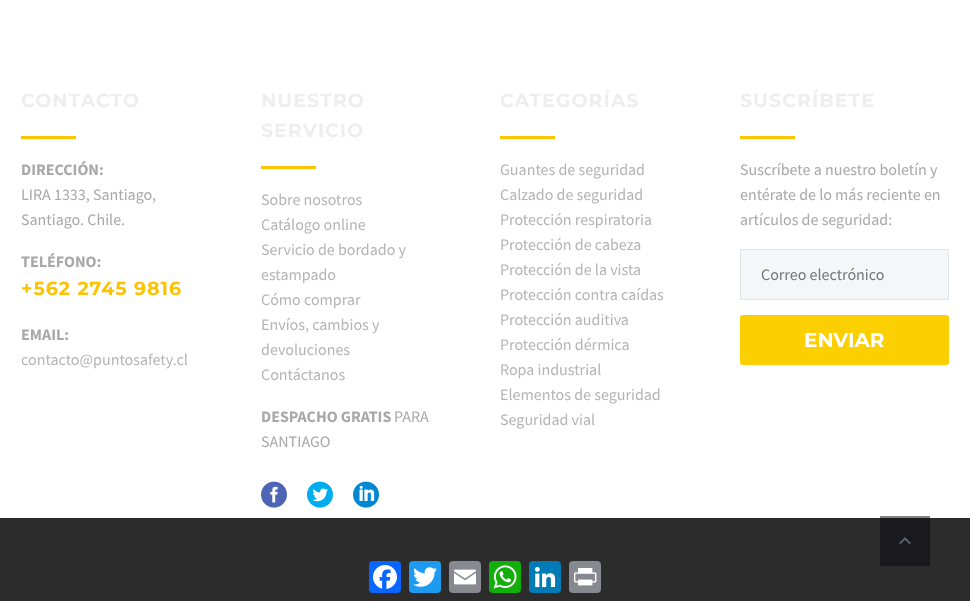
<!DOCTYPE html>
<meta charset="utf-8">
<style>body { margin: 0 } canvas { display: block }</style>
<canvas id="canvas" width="970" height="601"></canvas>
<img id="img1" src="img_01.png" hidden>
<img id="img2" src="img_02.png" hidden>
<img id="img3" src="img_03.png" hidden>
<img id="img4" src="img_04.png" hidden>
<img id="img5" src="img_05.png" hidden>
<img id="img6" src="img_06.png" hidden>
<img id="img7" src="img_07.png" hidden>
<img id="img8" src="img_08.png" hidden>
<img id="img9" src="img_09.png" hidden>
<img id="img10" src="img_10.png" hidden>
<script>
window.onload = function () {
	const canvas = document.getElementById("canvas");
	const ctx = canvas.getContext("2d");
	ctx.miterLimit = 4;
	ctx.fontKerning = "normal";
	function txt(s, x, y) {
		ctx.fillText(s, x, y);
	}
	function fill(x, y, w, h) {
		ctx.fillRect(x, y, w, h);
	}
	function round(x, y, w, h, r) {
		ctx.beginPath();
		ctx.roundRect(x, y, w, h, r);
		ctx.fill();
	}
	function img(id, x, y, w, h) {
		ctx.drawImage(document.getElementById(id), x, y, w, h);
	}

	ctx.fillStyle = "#FFFFFF";
	fill(0, 0, 970, 601);
	ctx.fillStyle = "#838387";
	fill(880, 516, 50, 2);
	ctx.fillStyle = "#FBC300";
	fill(21, 136, 55, 3);
	fill(261, 166, 55, 3);
	img("img1", 261, 481, 26, 27);
	img("img2", 307, 481, 26, 27);
	img("img3", 353, 481, 26, 27);
	fill(500, 136, 55, 3);
	fill(740, 136, 55, 3);
	ctx.fillStyle = "#F4F6F7";
	ctx.beginPath();
	ctx.rect(740.5, 249.5, 208, 50);
	ctx.fill();
	ctx.strokeStyle = "#DFE5E8";
	ctx.stroke();
	ctx.fillStyle = "#FBCF00";
	round(740, 315, 209, 50, 3);
	ctx.fillStyle = "#2C2C2C";
	fill(0, 518, 970, 83);
	ctx.fillStyle = "#19191E";
	fill(880, 518, 50, 48);
	img("img4", 899, 537, 12, 8);
	ctx.fillStyle = "#0866FF";
	round(369, 561, 32, 32, 4);
	img("img5", 373, 565, 24, 24);
	ctx.fillStyle = "#1D9BF0";
	round(409, 561, 32, 32, 4);
	img("img6", 413, 567, 24, 20);
	ctx.fillStyle = "#888990";
	round(449, 561, 32, 32, 4);
	img("img7", 454, 569, 22, 16);
	ctx.fillStyle = "#12AF0A";
	round(489, 561, 32, 32, 4);
	img("img8", 493, 565, 24, 24);
	ctx.fillStyle = "#007BB5";
	round(529, 561, 32, 32, 4);
	img("img9", 534, 566, 22, 22);
	ctx.fillStyle = "#888990";
	round(569, 561, 32, 32, 4);
	img("img10", 574, 568, 23, 18);
	ctx.letterSpacing = "1px";
	ctx.font = "bold 19px Montserrat";
	ctx.fillStyle = "#EEEEEE";
	txt("CONTACTO", 21, 107);
	ctx.letterSpacing = "0px";
	ctx.font = "bold 16px Source Sans Pro";
	ctx.fillStyle = "#A8A8A8";
	txt("DIRECCIÓN:", 21, 175);
	ctx.font = "16px Source Sans Pro";
	txt("LIRA 1333, Santiago,", 21, 200);
	txt("Santiago. Chile.", 21, 225);
	ctx.font = "bold 16px Source Sans Pro";
	txt("TELÉFONO:", 21, 267);
	ctx.letterSpacing = "1px";
	ctx.font = "bold 19px Montserrat";
	ctx.fillStyle = "#FBC300";
	txt("+562 2745 9816", 21, 295);
	ctx.letterSpacing = "0px";
	ctx.font = "bold 16px Source Sans Pro";
	ctx.fillStyle = "#A8A8A8";
	txt("EMAIL:", 21, 340);
	ctx.font = "16px Source Sans Pro";
	ctx.fillStyle = "#B4B4B4";
	txt("contacto@puntosafety.cl", 21, 365);
	ctx.letterSpacing = "1px";
	ctx.font = "bold 19px Montserrat";
	ctx.fillStyle = "#EEEEEE";
	txt("NUESTRO", 261, 107);
	txt("SERVICIO", 261, 137);
	ctx.letterSpacing = "0px";
	ctx.font = "16px Source Sans Pro";
	ctx.fillStyle = "#B4B4B4";
	txt("Sobre nosotros", 261, 205);
	txt("Catálogo online", 261, 230);
	txt("Servicio de bordado y", 261, 255);
	txt("estampado", 261, 280);
	txt("Cómo comprar", 261, 305);
	txt("Envíos, cambios y", 261, 330);
	txt("devoluciones", 261, 355);
	txt("Contáctanos", 261, 380);
	ctx.font = "bold 16px Source Sans Pro";
	ctx.fillStyle = "#A8A8A8";
	txt("DESPACHO GRATIS", 261, 422);
	ctx.font = "16px Source Sans Pro";
	txt("PARA", 394, 422);
	txt("SANTIAGO", 261, 447);
	ctx.letterSpacing = "1px";
	ctx.font = "bold 19px Montserrat";
	ctx.fillStyle = "#EEEEEE";
	txt("CATEGORÍAS", 500, 107);
	ctx.letterSpacing = "0px";
	ctx.font = "16px Source Sans Pro";
	ctx.fillStyle = "#B4B4B4";
	txt("Guantes de seguridad", 500, 175);
	txt("Calzado de seguridad", 500, 200);
	txt("Protección respiratoria", 500, 225);
	txt("Protección de cabeza", 500, 250);
	txt("Protección de la vista", 500, 275);
	txt("Protección contra caídas", 500, 300);
	txt("Protección auditiva", 500, 325);
	txt("Protección dérmica", 500, 350);
	txt("Ropa industrial", 500, 375);
	txt("Elementos de seguridad", 500, 400);
	txt("Seguridad vial", 500, 425);
	ctx.letterSpacing = "1px";
	ctx.font = "bold 19px Montserrat";
	ctx.fillStyle = "#EEEEEE";
	txt("SUSCRÍBETE", 740, 107);
	ctx.letterSpacing = "0px";
	ctx.font = "16px Source Sans Pro";
	ctx.fillStyle = "#A8A8A8";
	txt("Suscríbete a nuestro boletín y", 740, 175);
	txt("entérate de lo más reciente en", 740, 200);
	txt("artículos de seguridad:", 740, 225);
	ctx.fillStyle = "#757575";
	txt("Correo electrónico", 761, 280);
	ctx.font = "bold 20px Montserrat";
	ctx.fillStyle = "#FFFFFF";
	txt("ENVIAR", 804, 347);
};
</script>
